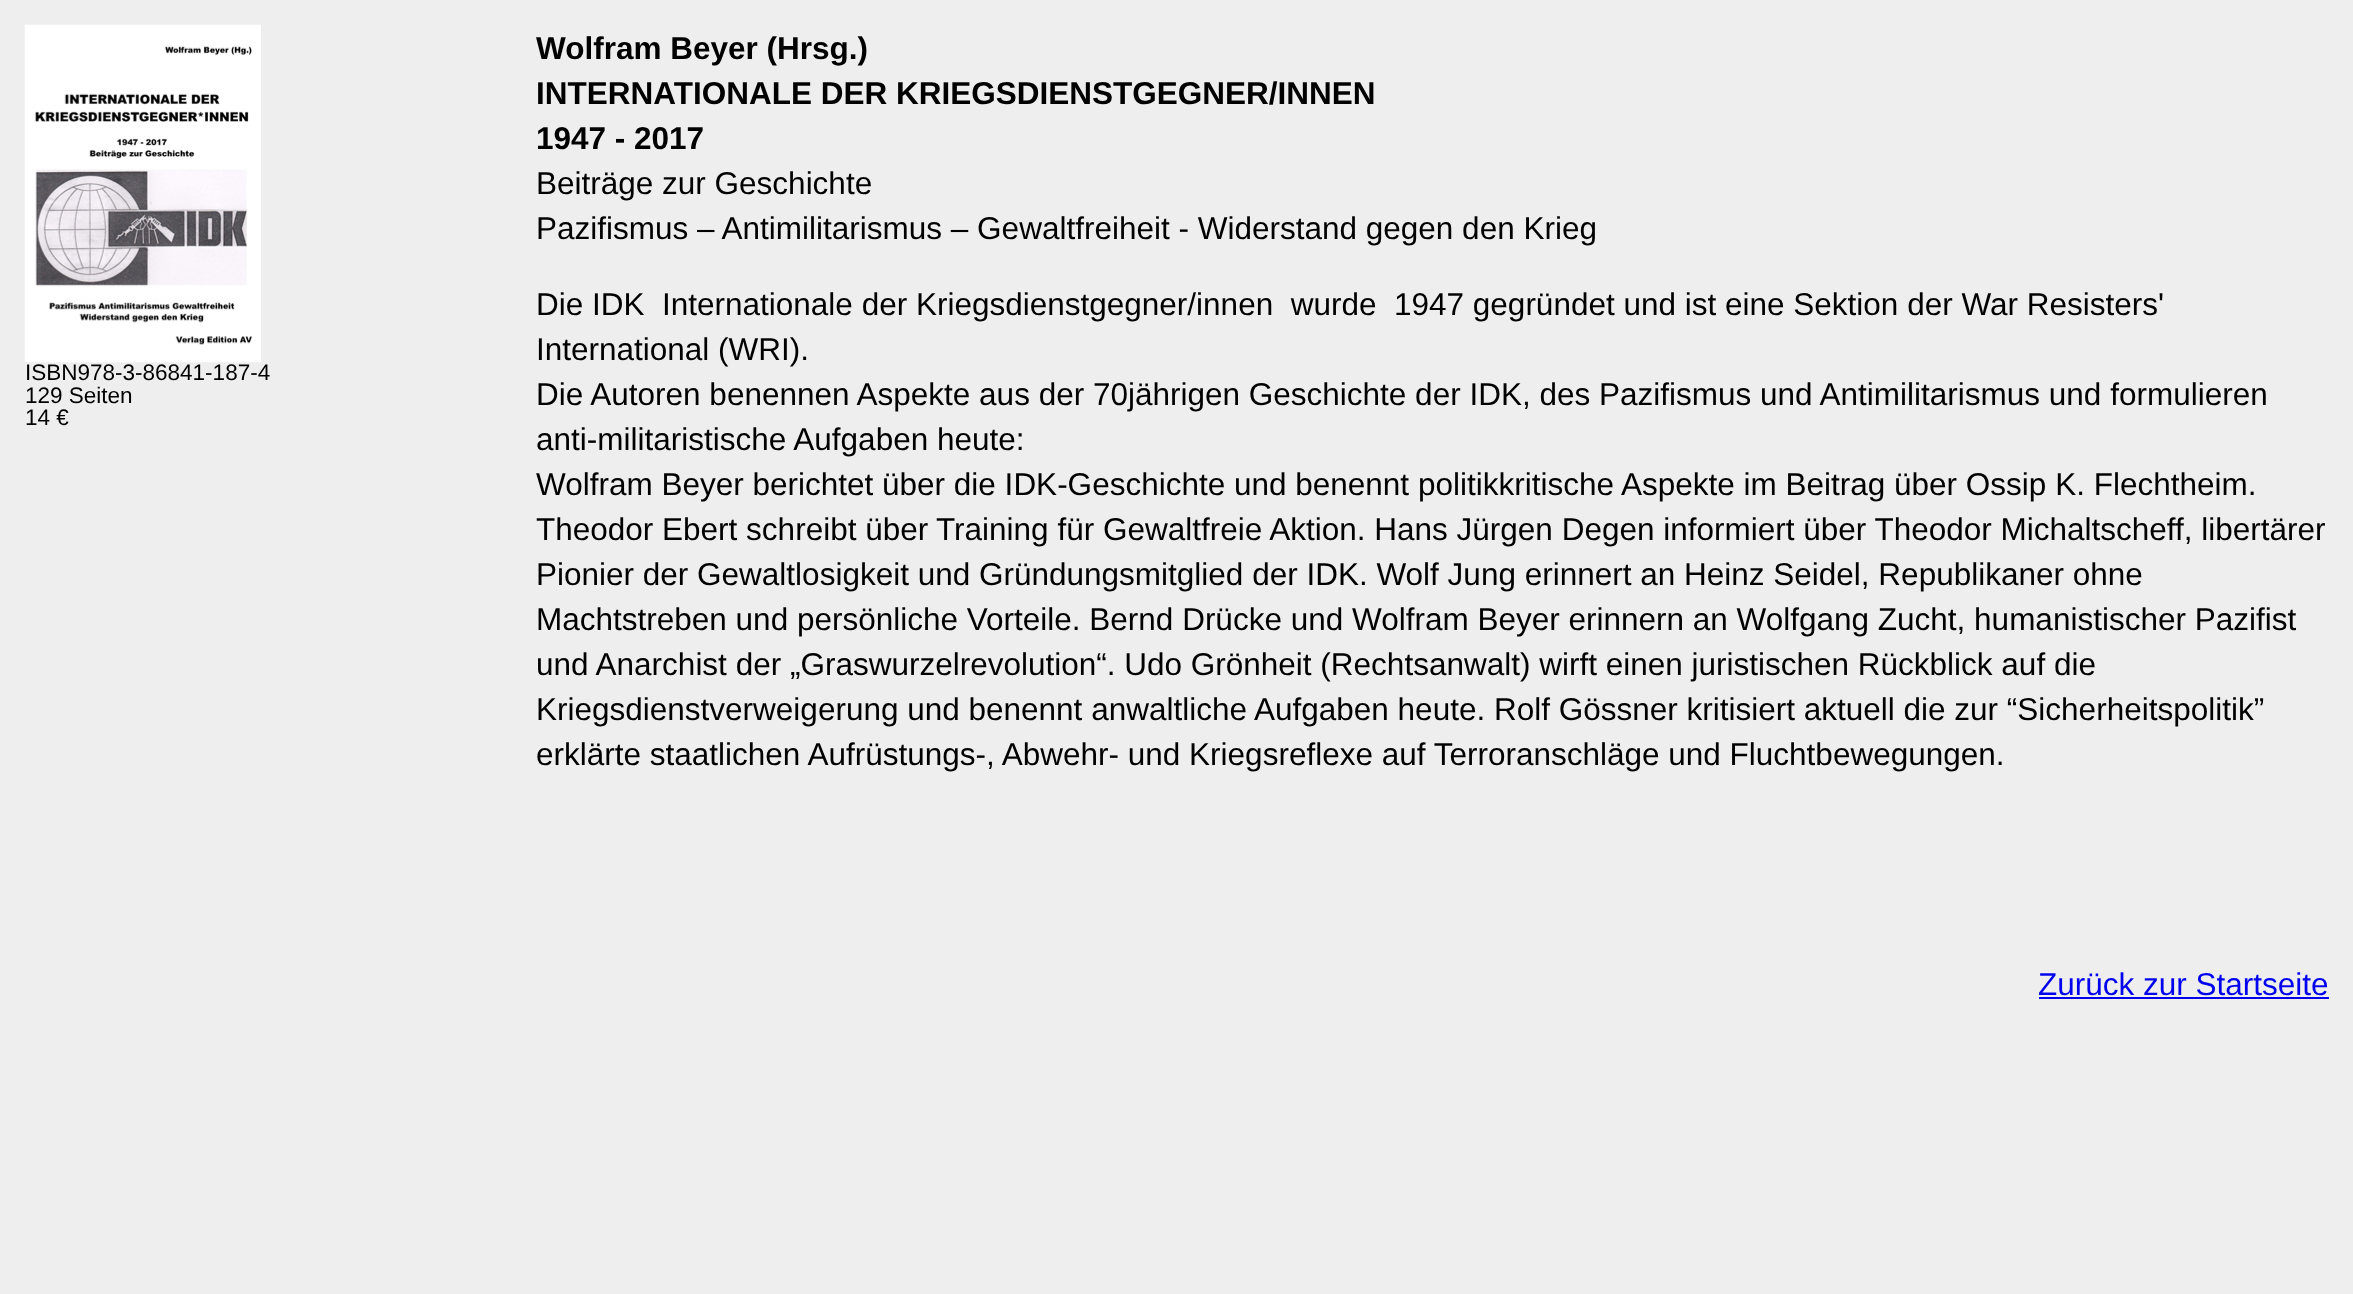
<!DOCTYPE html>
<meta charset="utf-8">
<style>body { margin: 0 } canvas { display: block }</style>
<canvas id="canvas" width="2353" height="1294"></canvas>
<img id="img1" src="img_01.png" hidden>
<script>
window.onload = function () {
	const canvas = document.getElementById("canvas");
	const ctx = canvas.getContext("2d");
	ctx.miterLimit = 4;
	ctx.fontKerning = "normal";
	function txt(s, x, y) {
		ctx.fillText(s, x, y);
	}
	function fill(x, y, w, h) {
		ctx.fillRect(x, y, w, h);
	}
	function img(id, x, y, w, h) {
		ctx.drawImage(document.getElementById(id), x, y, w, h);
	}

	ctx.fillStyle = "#EEEEEE";
	fill(0, 0, 2353, 1294);
	img("img1", 24, 24, 237, 339);
	ctx.fillStyle = "#0000EE";
	fill(2039, 997, 290, 2);
	ctx.font = "22.5px Liberation Sans";
	ctx.fillStyle = "#000000";
	txt("ISBN978-3-86841-187-4", 25, 380);
	txt("129 Seiten", 25, 403);
	txt("14 €", 25, 425);
	ctx.font = "bold 31.5px Liberation Sans";
	txt("Wolfram Beyer (Hrsg.)", 536, 59);
	txt("INTERNATIONALE DER KRIEGSDIENSTGEGNER/INNEN", 536, 104);
	txt("1947 - 2017", 536, 149);
	ctx.font = "31.5px Liberation Sans";
	txt("Beiträge zur Geschichte", 536, 194);
	txt("Pazifismus – Antimilitarismus – Gewaltfreiheit - Widerstand gegen den Krieg", 536, 239);
	txt("Die IDK", 536, 315);
	txt("Internationale der Kriegsdienstgegner/innen  wurde", 662, 315);
	txt("1947 gegründet und ist eine Sektion der War Resisters'", 1394, 315);
	txt("International (WRI).", 536, 360);
	txt("Die Autoren benennen Aspekte aus der 70jährigen Geschichte der IDK, des Pazifismus und Antimilitarismus und formulieren", 536, 405);
	txt("anti-militaristische Aufgaben heute:", 536, 450);
	txt("Wolfram Beyer berichtet über die IDK-Geschichte und benennt politikkritische Aspekte im Beitrag über Ossip K. Flechtheim.", 536, 495);
	txt("Theodor Ebert schreibt über", 536, 540);
	txt("Training für Gewaltfreie Aktion. Hans Jürgen Degen informiert über Theodor Michaltscheff, libertärer", 936, 540);
	txt("Pionier der Gewaltlosigkeit und Gründungsmitglied der IDK. Wolf Jung erinnert an Heinz Seidel, Republikaner ohne", 536, 585);
	txt("Machtstreben und persönliche Vorteile. Bernd Drücke und Wolfram Beyer erinnern an Wolfgang Zucht, humanistischer Pazifist", 536, 630);
	txt("und Anarchist der „Graswurzelrevolution“. Udo Grönheit (Rechtsanwalt) wirft einen juristischen Rückblick auf die", 536, 675);
	txt("Kriegsdienstverweigerung und benennt anwaltliche Aufgaben heute. Rolf Gössner kritisiert aktuell die zur “Sicherheitspolitik”", 536, 720);
	txt("erklärte staatlichen Aufrüstungs-, Abwehr- und Kriegsreflexe auf Terroranschläge und Fluchtbewegungen.", 536, 765);
	ctx.fillStyle = "#0000EE";
	txt("Zurück zur Startseite", 2038, 995);
};
</script>
